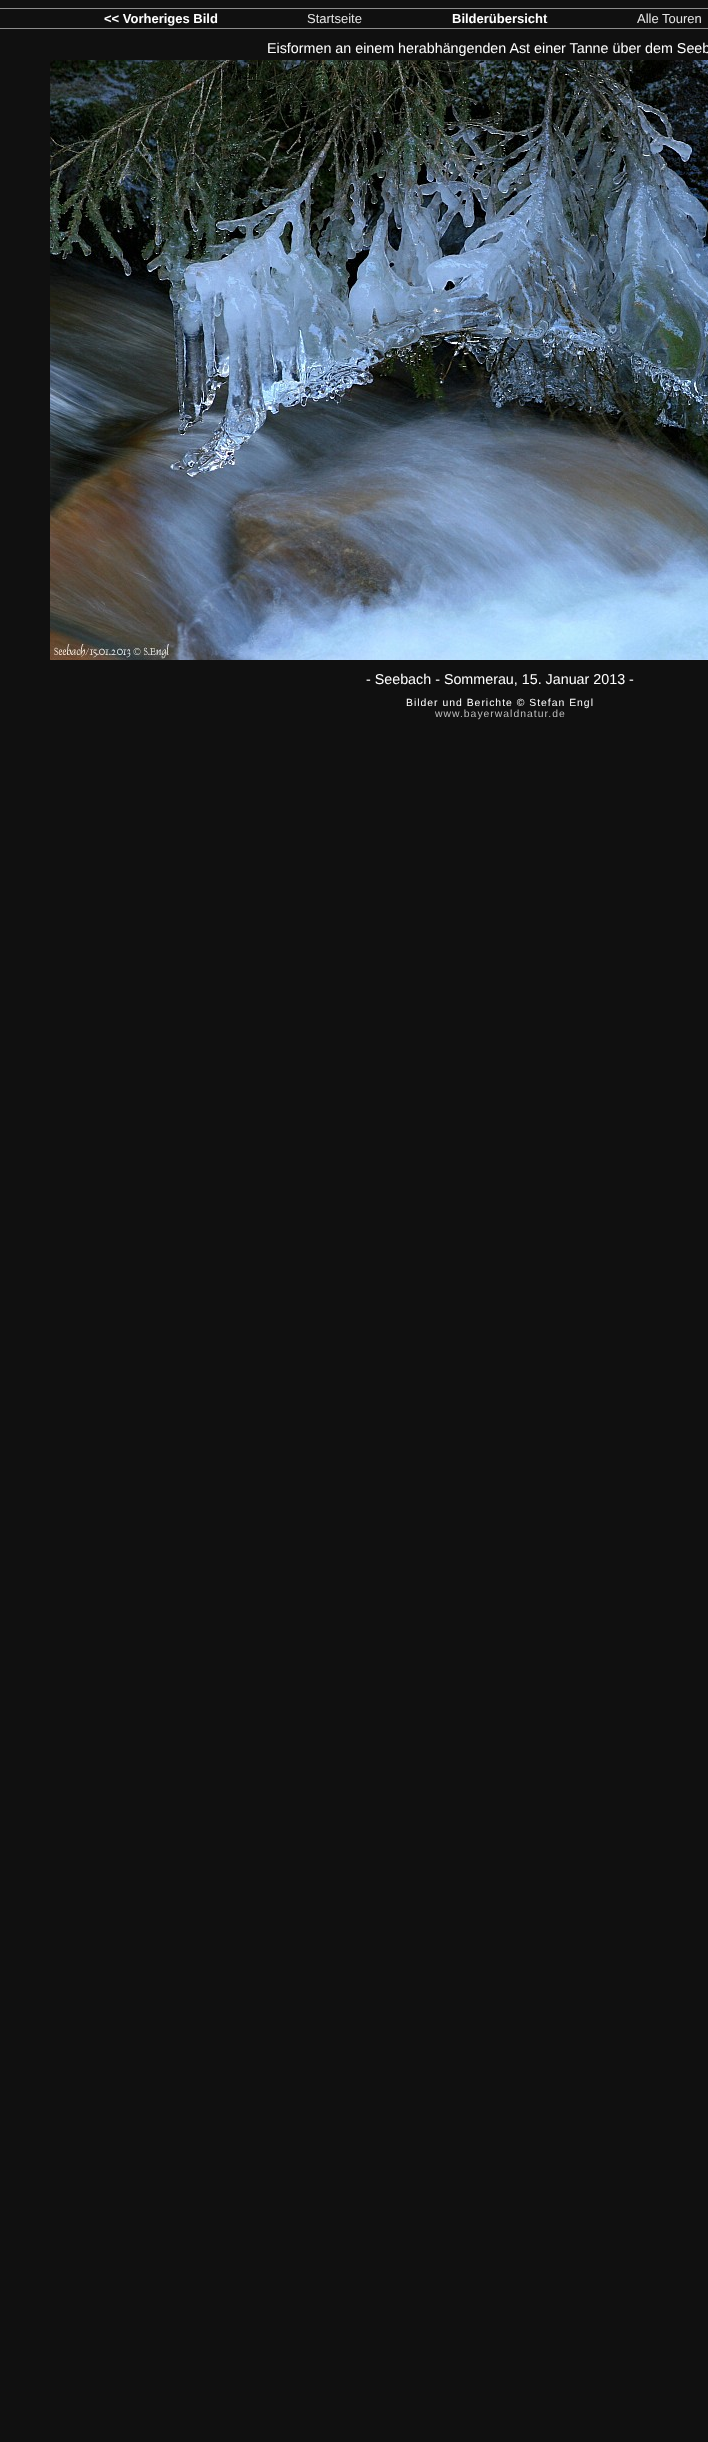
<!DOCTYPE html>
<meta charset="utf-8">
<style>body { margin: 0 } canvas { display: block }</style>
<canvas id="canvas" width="708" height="2442"></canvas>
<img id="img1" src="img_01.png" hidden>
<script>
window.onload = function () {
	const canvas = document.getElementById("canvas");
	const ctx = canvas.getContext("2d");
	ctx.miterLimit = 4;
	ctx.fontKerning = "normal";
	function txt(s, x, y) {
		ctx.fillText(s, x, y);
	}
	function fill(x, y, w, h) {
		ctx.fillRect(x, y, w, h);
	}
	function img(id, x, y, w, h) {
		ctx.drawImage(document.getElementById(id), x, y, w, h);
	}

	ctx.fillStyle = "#101010";
	fill(0, 0, 708, 2442);
	ctx.fillStyle = "#8C8C8C";
	fill(0, 8, 708, 1);
	fill(0, 28, 708, 1);
	img("img1", 50, 60, 658, 600);
	ctx.font = "bold 13px Liberation Sans";
	ctx.fillStyle = "#FFFFFF";
	txt("<< Vorheriges Bild", 104, 23);
	ctx.font = "13px Liberation Sans";
	ctx.fillStyle = "#E6E6E6";
	txt("Startseite", 307, 23);
	ctx.font = "bold 13px Liberation Sans";
	ctx.fillStyle = "#FFFFFF";
	txt("Bilderübersicht", 452, 23);
	ctx.font = "13px Liberation Sans";
	ctx.fillStyle = "#E6E6E6";
	txt("Alle Touren", 637, 23);
	ctx.font = "14.3px Liberation Sans";
	ctx.fillStyle = "#FFFFFF";
	txt("Eisformen an einem herabhängenden Ast einer Tanne über dem Seeb", 267, 53);
	txt("- Seebach - Sommerau, 15. Januar 2013 -", 366, 684);
	ctx.letterSpacing = "1px";
	ctx.font = "10.4px Liberation Sans";
	txt("Bilder und Berichte © Stefan Engl", 406, 706);
	ctx.fillStyle = "#BDBDBD";
	txt("www.bayerwaldnatur.de", 435, 717);
};
</script>
